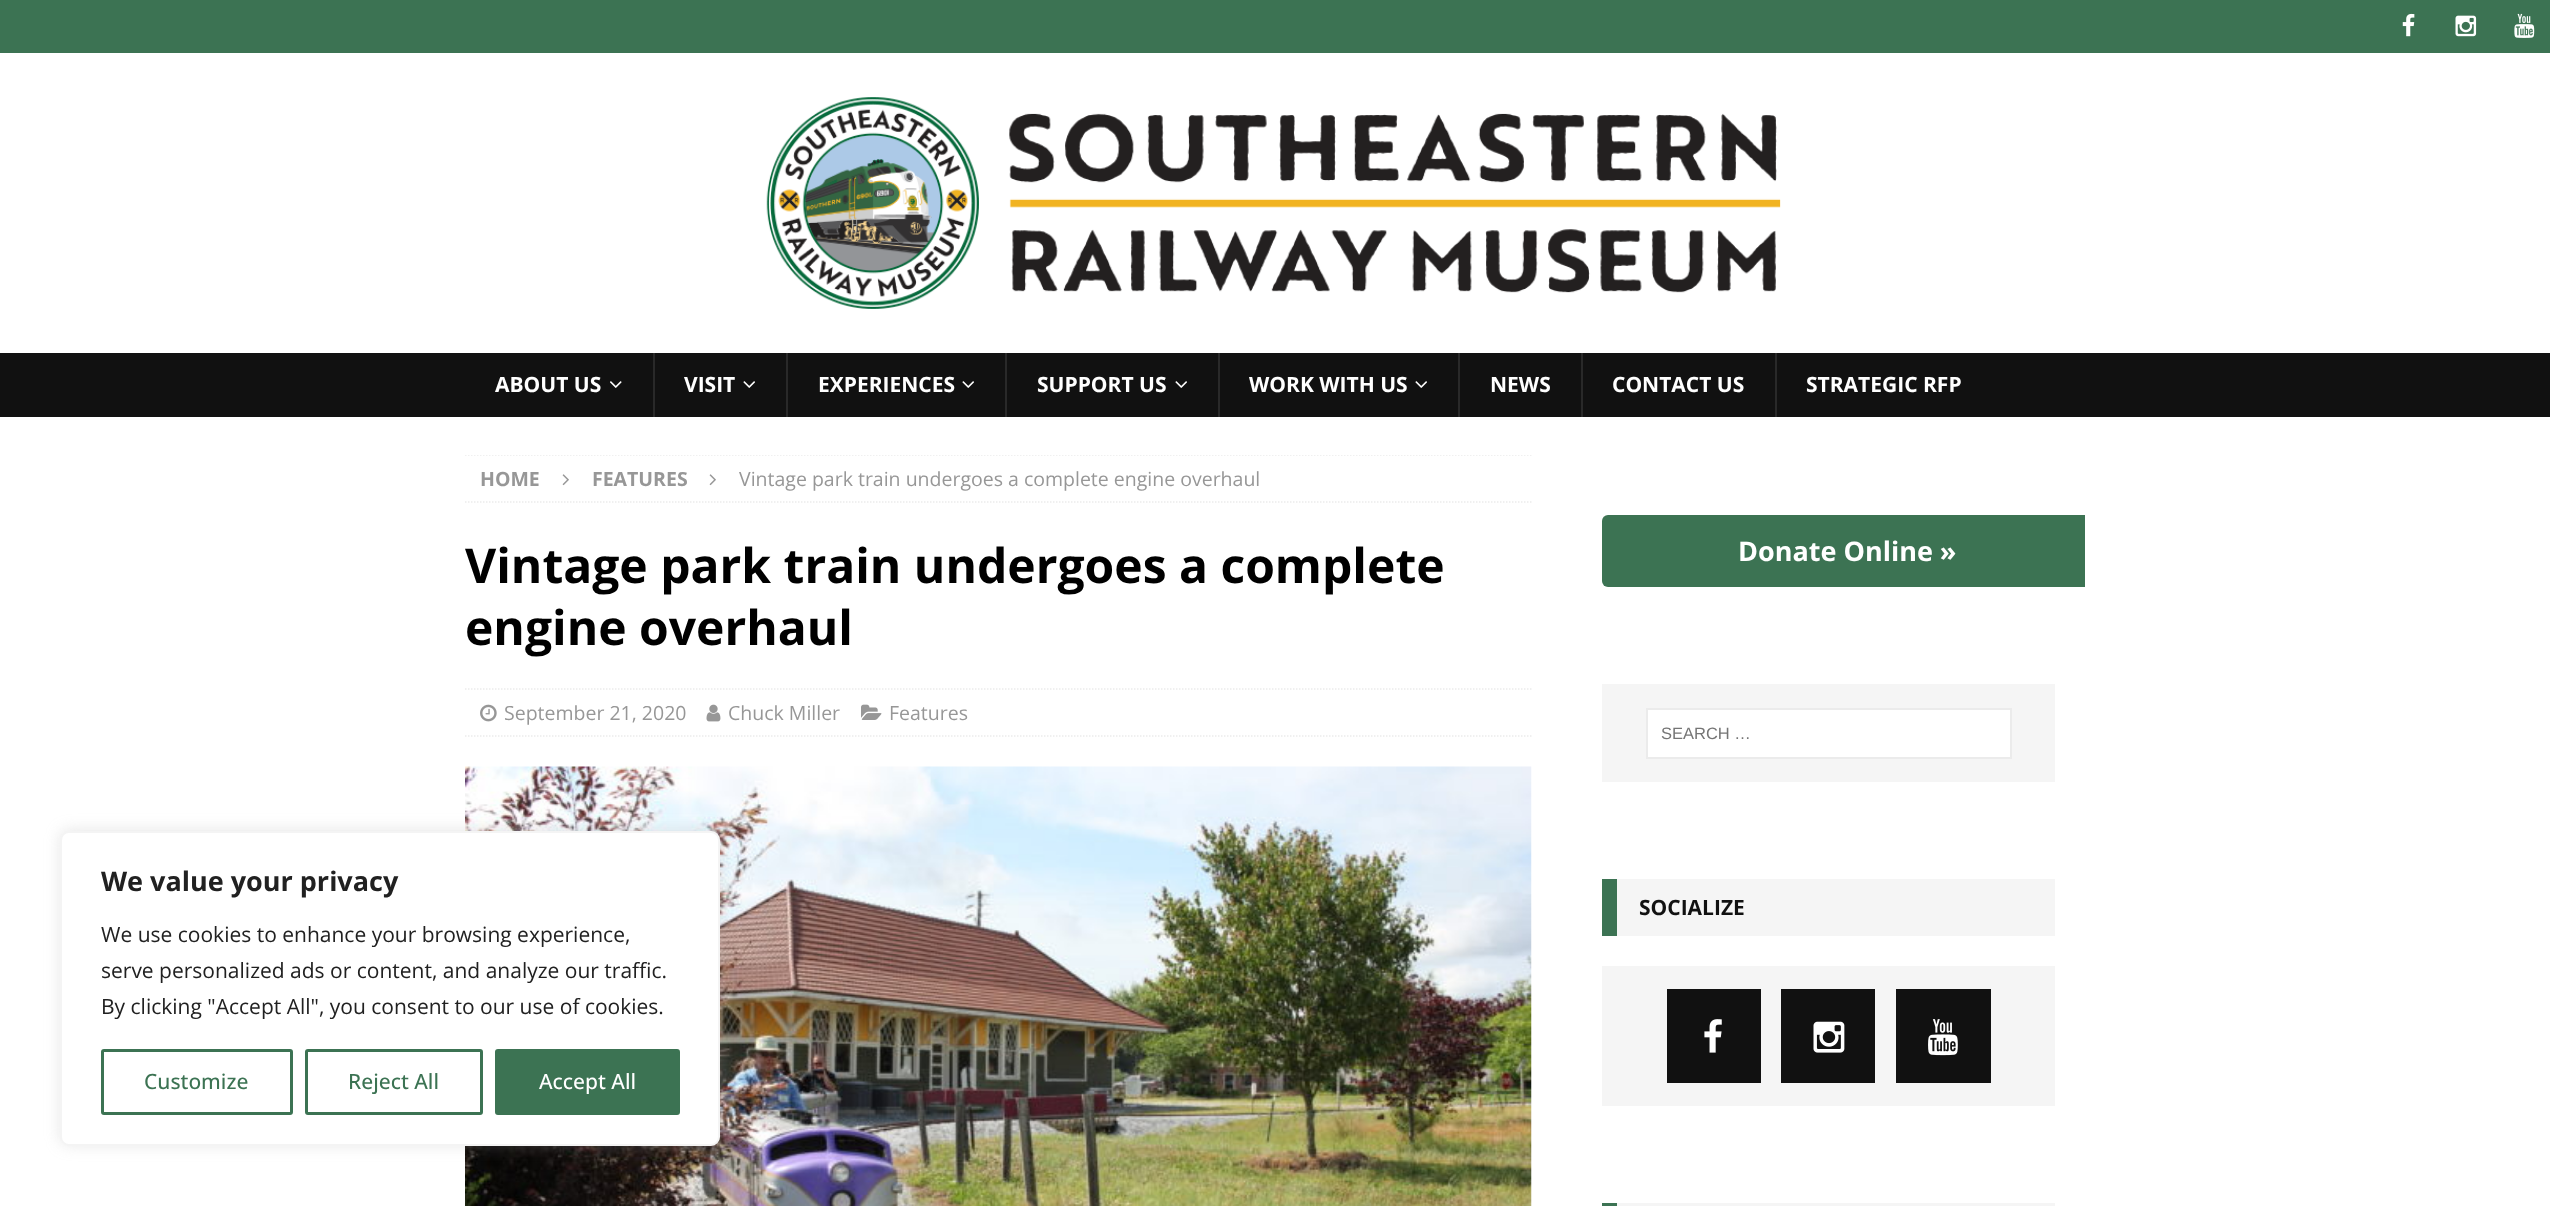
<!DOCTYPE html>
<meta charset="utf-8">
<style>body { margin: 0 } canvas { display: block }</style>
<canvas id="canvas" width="2550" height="1206"></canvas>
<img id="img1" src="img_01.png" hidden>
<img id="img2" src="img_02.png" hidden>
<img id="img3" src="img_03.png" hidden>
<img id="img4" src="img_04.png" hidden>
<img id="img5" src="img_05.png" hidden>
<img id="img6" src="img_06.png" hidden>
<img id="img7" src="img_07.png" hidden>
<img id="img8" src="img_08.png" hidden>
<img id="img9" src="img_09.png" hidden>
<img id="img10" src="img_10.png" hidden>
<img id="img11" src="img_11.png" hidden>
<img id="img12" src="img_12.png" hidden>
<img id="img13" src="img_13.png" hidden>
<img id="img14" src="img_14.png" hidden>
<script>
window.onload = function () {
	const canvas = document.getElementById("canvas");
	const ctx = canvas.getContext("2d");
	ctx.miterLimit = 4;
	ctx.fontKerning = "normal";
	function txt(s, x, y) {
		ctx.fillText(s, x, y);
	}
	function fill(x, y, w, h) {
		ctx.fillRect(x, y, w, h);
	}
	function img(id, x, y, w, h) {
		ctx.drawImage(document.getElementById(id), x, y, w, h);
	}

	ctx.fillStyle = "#FFFFFF";
	fill(0, 0, 2550, 1206);
	ctx.fillStyle = "#3C7353";
	fill(0, 0, 2550, 53);
	img("img1", 2402, 13, 13, 24);
	img("img2", 2455, 15, 22, 22);
	img("img3", 2514, 13, 21, 25);
	img("img4", 766, 97, 1015, 212);
	ctx.fillStyle = "#111111";
	fill(0, 353, 2550, 64);
	img("img5", 610, 381, 12, 7);
	ctx.fillStyle = "#292929";
	fill(653, 353, 2, 64);
	img("img6", 743, 381, 12, 7);
	fill(786, 353, 2, 64);
	img("img6", 962, 381, 12, 7);
	fill(1005, 353, 2, 64);
	img("img6", 1175, 381, 12, 7);
	fill(1218, 353, 2, 64);
	img("img6", 1415, 381, 12, 7);
	fill(1458, 353, 2, 64);
	fill(1581, 353, 2, 64);
	fill(1775, 353, 2, 64);
	ctx.save();
	ctx.beginPath();
	ctx.rect(465, 455, 1067, 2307);
	ctx.clip();
	ctx.beginPath();
	ctx.moveTo(465, 455);
	ctx.lineTo(1531.5, 455);
	ctx.strokeStyle = "#EBEBEB";
	ctx.lineWidth = 1.5;
	ctx.setLineDash([1.5, 1.5]);
	ctx.stroke();
	ctx.restore();
	ctx.beginPath();
	ctx.moveTo(465, 502);
	ctx.lineTo(1531.5, 502);
	ctx.strokeStyle = "#EBEBEB";
	ctx.lineWidth = 1.5;
	ctx.setLineDash([1.5, 1.5]);
	ctx.stroke();
	img("img7", 562, 474, 7, 12);
	img("img7", 709, 474, 7, 12);
	ctx.beginPath();
	ctx.moveTo(465, 689);
	ctx.lineTo(1531.5, 689);
	ctx.stroke();
	ctx.beginPath();
	ctx.moveTo(465, 736);
	ctx.lineTo(1531.5, 736);
	ctx.stroke();
	img("img8", 480, 704, 17, 18);
	img("img9", 706, 704, 15, 18);
	img("img10", 861, 704, 21, 16);
	img("img11", 465, 766, 1067, 440);
	ctx.fillStyle = "#3C7353";
	ctx.beginPath();
	ctx.roundRect(1602, 515, 483, 72, [6, 0, 0, 6]);
	ctx.fill();
	ctx.fillStyle = "#F5F5F5";
	fill(1602, 684, 453, 98);
	ctx.fillStyle = "#FFFFFF";
	ctx.beginPath();
	ctx.rect(1647, 709, 364, 49);
	ctx.fill();
	ctx.lineWidth = 2;
	ctx.setLineDash([]);
	ctx.stroke();
	ctx.fillStyle = "#F5F5F5";
	fill(1617, 879, 438, 57);
	ctx.fillStyle = "#3C7353";
	fill(1602, 879, 15, 57);
	ctx.fillStyle = "#F5F5F5";
	fill(1602, 966, 453, 140);
	ctx.fillStyle = "#111111";
	fill(1667, 989, 94, 94);
	img("img12", 1704, 1019, 18, 34);
	fill(1781, 989, 94, 94);
	img("img13", 1813, 1021, 32, 32);
	fill(1896, 989, 95, 94);
	img("img14", 1928, 1019, 30, 37);
	ctx.fillStyle = "#F5F5F5";
	fill(1617, 1203, 438, 3);
	ctx.fillStyle = "#3C7353";
	fill(1602, 1203, 15, 3);
	ctx.fillStyle = "rgba(172, 171, 171, 0.3)";
	ctx.filter = "blur(7.5px)";
	ctx.beginPath();
	ctx.roundRect(60, 830, 660, 315, 9);
	ctx.fill();
	ctx.filter = "none";
	ctx.fillStyle = "#FFFFFF";
	ctx.beginPath();
	ctx.roundRect(61, 832, 658, 313, 8);
	ctx.fill();
	ctx.strokeStyle = "#F4F4F4";
	ctx.stroke();
	ctx.beginPath();
	ctx.roundRect(102.5, 1050.5, 189, 63, 1.5);
	ctx.strokeStyle = "#3C7353";
	ctx.lineWidth = 3;
	ctx.stroke();
	ctx.beginPath();
	ctx.roundRect(306.5, 1050.5, 175, 63, 1.5);
	ctx.stroke();
	ctx.fillStyle = "#3C7353";
	ctx.beginPath();
	ctx.roundRect(496.5, 1050.5, 182, 63, 1.5);
	ctx.fill();
	ctx.stroke();
	ctx.font = "bold 21px Open Sans";
	ctx.fillStyle = "#FFFFFF";
	txt("ABOUT US", 495, 392);
	txt("VISIT", 684, 392);
	txt("EXPERIENCES", 818, 392);
	txt("SUPPORT US", 1037, 392);
	txt("WORK WITH US", 1249, 392);
	txt("NEWS", 1490, 392);
	txt("CONTACT US", 1612, 392);
	txt("STRATEGIC RFP", 1806, 392);
	ctx.font = "bold 19.5px Open Sans";
	ctx.fillStyle = "#979797";
	txt("HOME", 480, 486);
	txt("FEATURES", 592, 486);
	ctx.font = "19.5px Open Sans";
	txt("Vintage park train undergoes a complete engine overhaul", 739, 486);
	ctx.font = "bold 48px Open Sans";
	ctx.fillStyle = "#000000";
	txt("Vintage park train undergoes a complete", 465, 583);
	txt("engine overhaul", 465, 645);
	ctx.font = "19.5px Open Sans";
	ctx.fillStyle = "#979797";
	txt("September 21, 2020", 504, 720);
	txt("Chuck Miller", 728, 720);
	txt("Features", 889, 720);
	ctx.font = "bold 27px Open Sans";
	ctx.fillStyle = "#FFFFFF";
	txt("Donate Online »", 1738, 561);
	ctx.font = "16.5px Liberation Sans";
	ctx.fillStyle = "#757575";
	txt("SEARCH …", 1661, 739);
	ctx.font = "bold 21px Open Sans";
	ctx.fillStyle = "#111111";
	txt("SOCIALIZE", 1639, 915);
	ctx.font = "bold 27px Open Sans";
	ctx.fillStyle = "#212121";
	txt("We value your privacy", 101, 891);
	ctx.font = "21px Open Sans";
	txt("We use cookies to enhance your browsing experience,", 101, 942);
	txt("serve personalized ads or content, and analyze our traffic.", 101, 978);
	txt("By clicking \"Accept All\", you consent to our use of cookies.", 101, 1014);
	ctx.font = "500 21px Open Sans";
	ctx.fillStyle = "#3C7353";
	txt("Customize", 144, 1089);
	txt("Reject All", 348, 1089);
	ctx.fillStyle = "#FFFFFF";
	txt("Accept All", 539, 1089);
};
</script>
